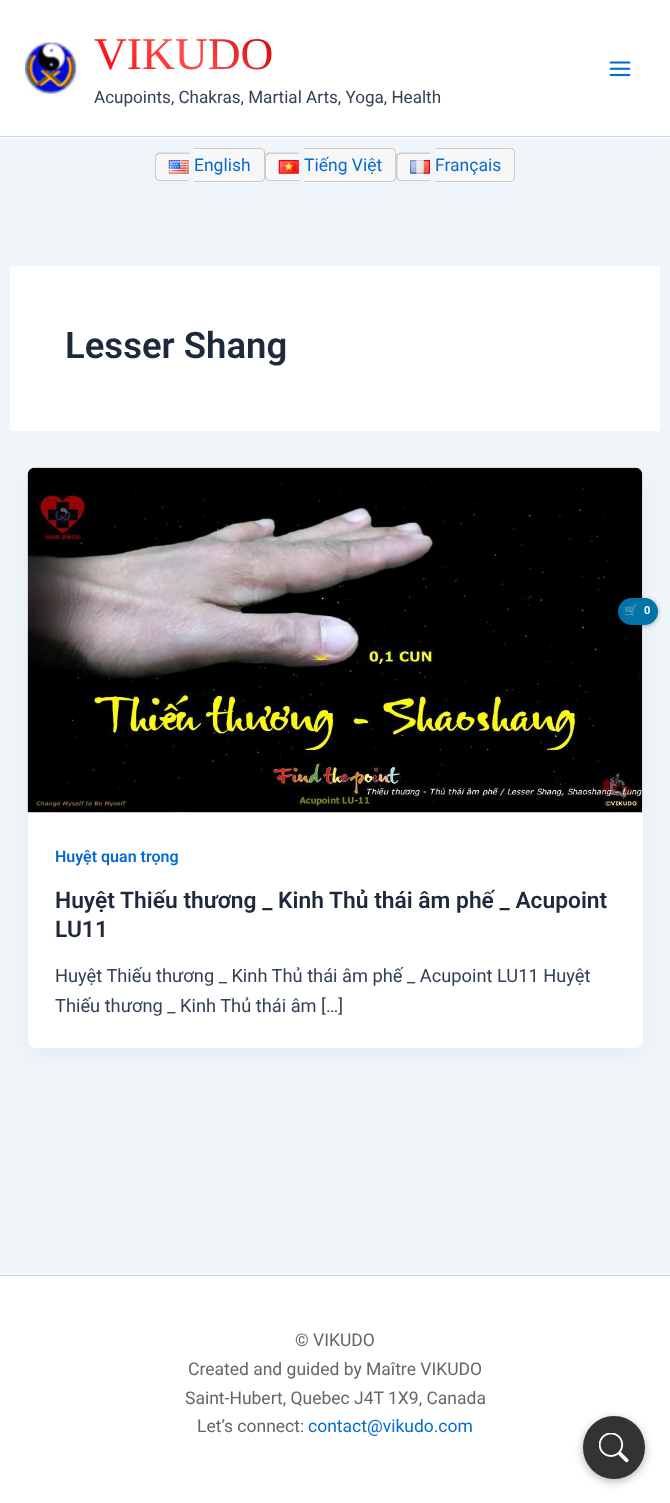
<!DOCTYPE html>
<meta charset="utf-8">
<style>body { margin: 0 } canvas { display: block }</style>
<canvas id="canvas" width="670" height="1503"></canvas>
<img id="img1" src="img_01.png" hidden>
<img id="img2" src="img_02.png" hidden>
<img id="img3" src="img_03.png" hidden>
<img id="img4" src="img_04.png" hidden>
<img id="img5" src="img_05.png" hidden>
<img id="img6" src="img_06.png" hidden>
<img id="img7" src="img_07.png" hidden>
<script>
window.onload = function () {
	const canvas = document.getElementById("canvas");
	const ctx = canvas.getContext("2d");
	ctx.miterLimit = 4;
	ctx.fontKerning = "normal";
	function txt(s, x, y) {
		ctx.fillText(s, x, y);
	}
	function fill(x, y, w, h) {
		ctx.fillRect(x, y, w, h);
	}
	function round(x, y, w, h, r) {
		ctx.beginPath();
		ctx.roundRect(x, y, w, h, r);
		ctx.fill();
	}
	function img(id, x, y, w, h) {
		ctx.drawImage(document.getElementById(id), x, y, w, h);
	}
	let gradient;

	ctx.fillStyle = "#F0F5FA";
	fill(0, 0, 670, 1503);
	ctx.fillStyle = "#FFFFFF";
	fill(0, 0, 670, 138);
	ctx.fillStyle = "#D1D5DB";
	fill(0, 136, 670, 1);
	img("img1", 25, 42, 52, 52);
	img("img2", 609, 61, 22, 16);
	ctx.fillStyle = "#F7F7F7";
	ctx.beginPath();
	ctx.roundRect(155, 153, 34, 28, [5, 0, 0, 5]);
	ctx.fill();
	ctx.fillStyle = "#CCCCCC";
	ctx.beginPath();
	ctx.moveTo(160, 152.5);
	ctx.lineTo(189, 152.5);
	ctx.lineTo(189, 181);
	ctx.lineTo(160, 181);
	ctx.bezierCurveTo(157, 181, 155, 179, 155, 176);
	ctx.lineTo(155, 157.5);
	ctx.bezierCurveTo(155, 154.5, 157, 152.5, 160, 152.5);
	ctx.closePath();
	ctx.moveTo(160, 154);
	ctx.lineTo(189, 154);
	ctx.lineTo(189, 180);
	ctx.lineTo(160, 180);
	ctx.bezierCurveTo(158, 180, 156, 178.5, 156, 176);
	ctx.lineTo(156, 157.5);
	ctx.bezierCurveTo(156, 155.5, 158, 154, 160, 154);
	ctx.closePath();
	ctx.fill("evenodd");
	ctx.fillStyle = "#F7F7F7";
	ctx.beginPath();
	ctx.roundRect(194, 148, 71, 35, [0, 5, 5, 0]);
	ctx.fill();
	ctx.fillStyle = "#CCCCCC";
	ctx.beginPath();
	ctx.moveTo(194, 148);
	ctx.lineTo(260, 148);
	ctx.bezierCurveTo(263, 148, 265, 150, 265, 152);
	ctx.lineTo(265, 178);
	ctx.bezierCurveTo(265, 180, 263, 182, 260, 182);
	ctx.lineTo(194, 182);
	ctx.closePath();
	ctx.moveTo(194, 149);
	ctx.lineTo(260, 149);
	ctx.bezierCurveTo(262, 149, 264, 150, 264, 152);
	ctx.lineTo(264, 178);
	ctx.bezierCurveTo(264, 180, 262, 181, 260, 181);
	ctx.lineTo(194, 181);
	ctx.closePath();
	ctx.fill("evenodd");
	img("img3", 168, 160, 21, 14);
	ctx.fillStyle = "#F7F7F7";
	ctx.beginPath();
	ctx.roundRect(265, 153, 34, 28, [5, 0, 0, 5]);
	ctx.fill();
	ctx.fillStyle = "#CCCCCC";
	ctx.beginPath();
	ctx.moveTo(270, 152.5);
	ctx.lineTo(299, 152.5);
	ctx.lineTo(299, 181);
	ctx.lineTo(270, 181);
	ctx.bezierCurveTo(267, 181, 265, 179, 265, 176);
	ctx.lineTo(265, 157.5);
	ctx.bezierCurveTo(265, 154.5, 267, 152.5, 270, 152.5);
	ctx.closePath();
	ctx.moveTo(270, 154);
	ctx.lineTo(299, 154);
	ctx.lineTo(299, 180);
	ctx.lineTo(270, 180);
	ctx.bezierCurveTo(268, 180, 266, 178.5, 266, 176);
	ctx.lineTo(266, 157.5);
	ctx.bezierCurveTo(266, 155.5, 268, 154, 270, 154);
	ctx.closePath();
	ctx.fill("evenodd");
	ctx.fillStyle = "#F7F7F7";
	ctx.beginPath();
	ctx.roundRect(304, 148, 92, 35, [0, 5, 5, 0]);
	ctx.fill();
	ctx.fillStyle = "#CCCCCC";
	ctx.beginPath();
	ctx.moveTo(304, 148);
	ctx.lineTo(391, 148);
	ctx.bezierCurveTo(394, 148, 396, 150, 396, 152);
	ctx.lineTo(396, 178);
	ctx.bezierCurveTo(396, 180, 394, 182, 391, 182);
	ctx.lineTo(304, 182);
	ctx.closePath();
	ctx.moveTo(304, 149);
	ctx.lineTo(391, 149);
	ctx.bezierCurveTo(393, 149, 395, 150, 395, 152);
	ctx.lineTo(395, 178);
	ctx.bezierCurveTo(395, 180, 393, 181, 391, 181);
	ctx.lineTo(304, 181);
	ctx.closePath();
	ctx.fill("evenodd");
	img("img4", 278, 160, 21, 14);
	ctx.fillStyle = "#F7F7F7";
	ctx.beginPath();
	ctx.roundRect(396, 153, 34, 28, [5, 0, 0, 5]);
	ctx.fill();
	ctx.fillStyle = "#CCCCCC";
	ctx.beginPath();
	ctx.moveTo(401, 152.5);
	ctx.lineTo(430, 152.5);
	ctx.lineTo(430, 181);
	ctx.lineTo(401, 181);
	ctx.bezierCurveTo(398.5, 181, 396, 179, 396, 176);
	ctx.lineTo(396, 157.5);
	ctx.bezierCurveTo(396, 154.5, 398.5, 152.5, 401, 152.5);
	ctx.closePath();
	ctx.moveTo(401, 154);
	ctx.lineTo(430, 154);
	ctx.lineTo(430, 180);
	ctx.lineTo(401, 180);
	ctx.bezierCurveTo(399, 180, 397.5, 178.5, 397.5, 176);
	ctx.lineTo(397.5, 157.5);
	ctx.bezierCurveTo(397.5, 155.5, 399, 154, 401, 154);
	ctx.closePath();
	ctx.fill("evenodd");
	ctx.fillStyle = "#F7F7F7";
	ctx.beginPath();
	ctx.roundRect(435, 148, 80, 35, [0, 5, 5, 0]);
	ctx.fill();
	ctx.fillStyle = "#CCCCCC";
	ctx.beginPath();
	ctx.moveTo(435, 148);
	ctx.lineTo(510, 148);
	ctx.bezierCurveTo(513, 148, 515, 150, 515, 152);
	ctx.lineTo(515, 178);
	ctx.bezierCurveTo(515, 180, 513, 182, 510, 182);
	ctx.lineTo(435, 182);
	ctx.closePath();
	ctx.moveTo(435, 149);
	ctx.lineTo(510, 149);
	ctx.bezierCurveTo(512, 149, 514, 150, 514, 152);
	ctx.lineTo(514, 178);
	ctx.bezierCurveTo(514, 180, 512, 181, 510, 181);
	ctx.lineTo(435, 181);
	ctx.closePath();
	ctx.fill("evenodd");
	img("img5", 410, 160, 20, 14);
	ctx.fillStyle = "#FFFFFF";
	fill(10, 266, 650, 165);
	ctx.fillStyle = "rgba(16, 24, 40, 0.05)";
	ctx.filter = "blur(9.5px)";
	ctx.beginPath();
	ctx.roundRect(30, 478, 610, 575, 5);
	ctx.fill();
	ctx.filter = "none";
	ctx.fillStyle = "#FFFFFF";
	round(28, 468, 615, 580, 8);
	img("img6", 27, 467, 616, 346);
	fill(0, 1276, 670, 227);
	ctx.fillStyle = "#D1D5DB";
	fill(0, 1275, 670, 1);
	ctx.fillStyle = "rgba(0, 0, 0, 0.3)";
	ctx.filter = "blur(2.5px)";
	ctx.beginPath();
	ctx.roundRect(618, 599, 40, 27, 13.5);
	ctx.fill();
	ctx.filter = "none";
	ctx.fillStyle = "#0073AA";
	round(618, 598, 40, 27, 13.5);
	ctx.fillStyle = "rgba(0, 0, 0, 0.3)";
	ctx.filter = "blur(5px)";
	ctx.beginPath();
	ctx.roundRect(583, 1419, 62, 62, 31);
	ctx.fill();
	ctx.filter = "none";
	ctx.fillStyle = "#333333";
	round(583, 1416, 62, 63, 31);
	img("img7", 599, 1433, 30, 30);
	ctx.font = "45.5px Liberation Serif";
	gradient = ctx.createLinearGradient(127, 111, 242, -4.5);
	gradient.addColorStop(0, "#FF0000");
	gradient.addColorStop(0.5, "#FF4D4D");
	gradient.addColorStop(1, "#CC0000");
	ctx.fillStyle = gradient;
	txt("VIKUDO", 94, 69);
	ctx.font = "17.1px Roboto";
	ctx.fillStyle = "#334155";
	txt("Acupoints, Chakras, Martial Arts, Yoga, Health", 94, 103);
	ctx.font = "17.5px Roboto";
	ctx.fillStyle = "#046BD2";
	txt("English", 194, 171);
	txt("Tiếng Việt", 304, 171);
	txt("Français", 435, 171);
	ctx.font = "600 36.5px Roboto";
	ctx.fillStyle = "#1E293B";
	txt("Lesser Shang", 65, 358);
	ctx.font = "600 16px Roboto";
	ctx.fillStyle = "#046BD2";
	txt("Huyệt quan trọng", 55, 862);
	ctx.font = "600 22.8px Roboto";
	ctx.fillStyle = "#1E293B";
	txt("Huyệt Thiếu thương _ Kinh Thủ thái âm phế _ Acupoint", 55, 908);
	txt("LU11", 55, 937);
	ctx.font = "18.25px Roboto";
	ctx.fillStyle = "#334155";
	txt("Huyệt Thiếu thương _ Kinh Thủ thái âm phế _ Acupoint LU11 Huyệt", 55, 982);
	txt("Thiếu thương _ Kinh Thủ thái âm […]", 55, 1012);
	ctx.font = "17.5px Roboto";
	ctx.fillStyle = "#666666";
	txt("© VIKUDO", 295, 1346);
	txt("Created and guided by Maître VIKUDO", 188, 1375);
	txt("Saint-Hubert, Quebec J4T 1X9, Canada", 185, 1404);
	txt("Let’s connect:", 197, 1432);
	ctx.fillStyle = "#046BD2";
	txt("contact@vikudo.com", 308, 1432);
	ctx.font = "11px Noto Color Emoji";
	ctx.fillStyle = "#FFFFFF";
	txt("🛒", 624, 614);
	ctx.font = "bold 11px Roboto";
	txt("0", 644, 614);
};
</script>
